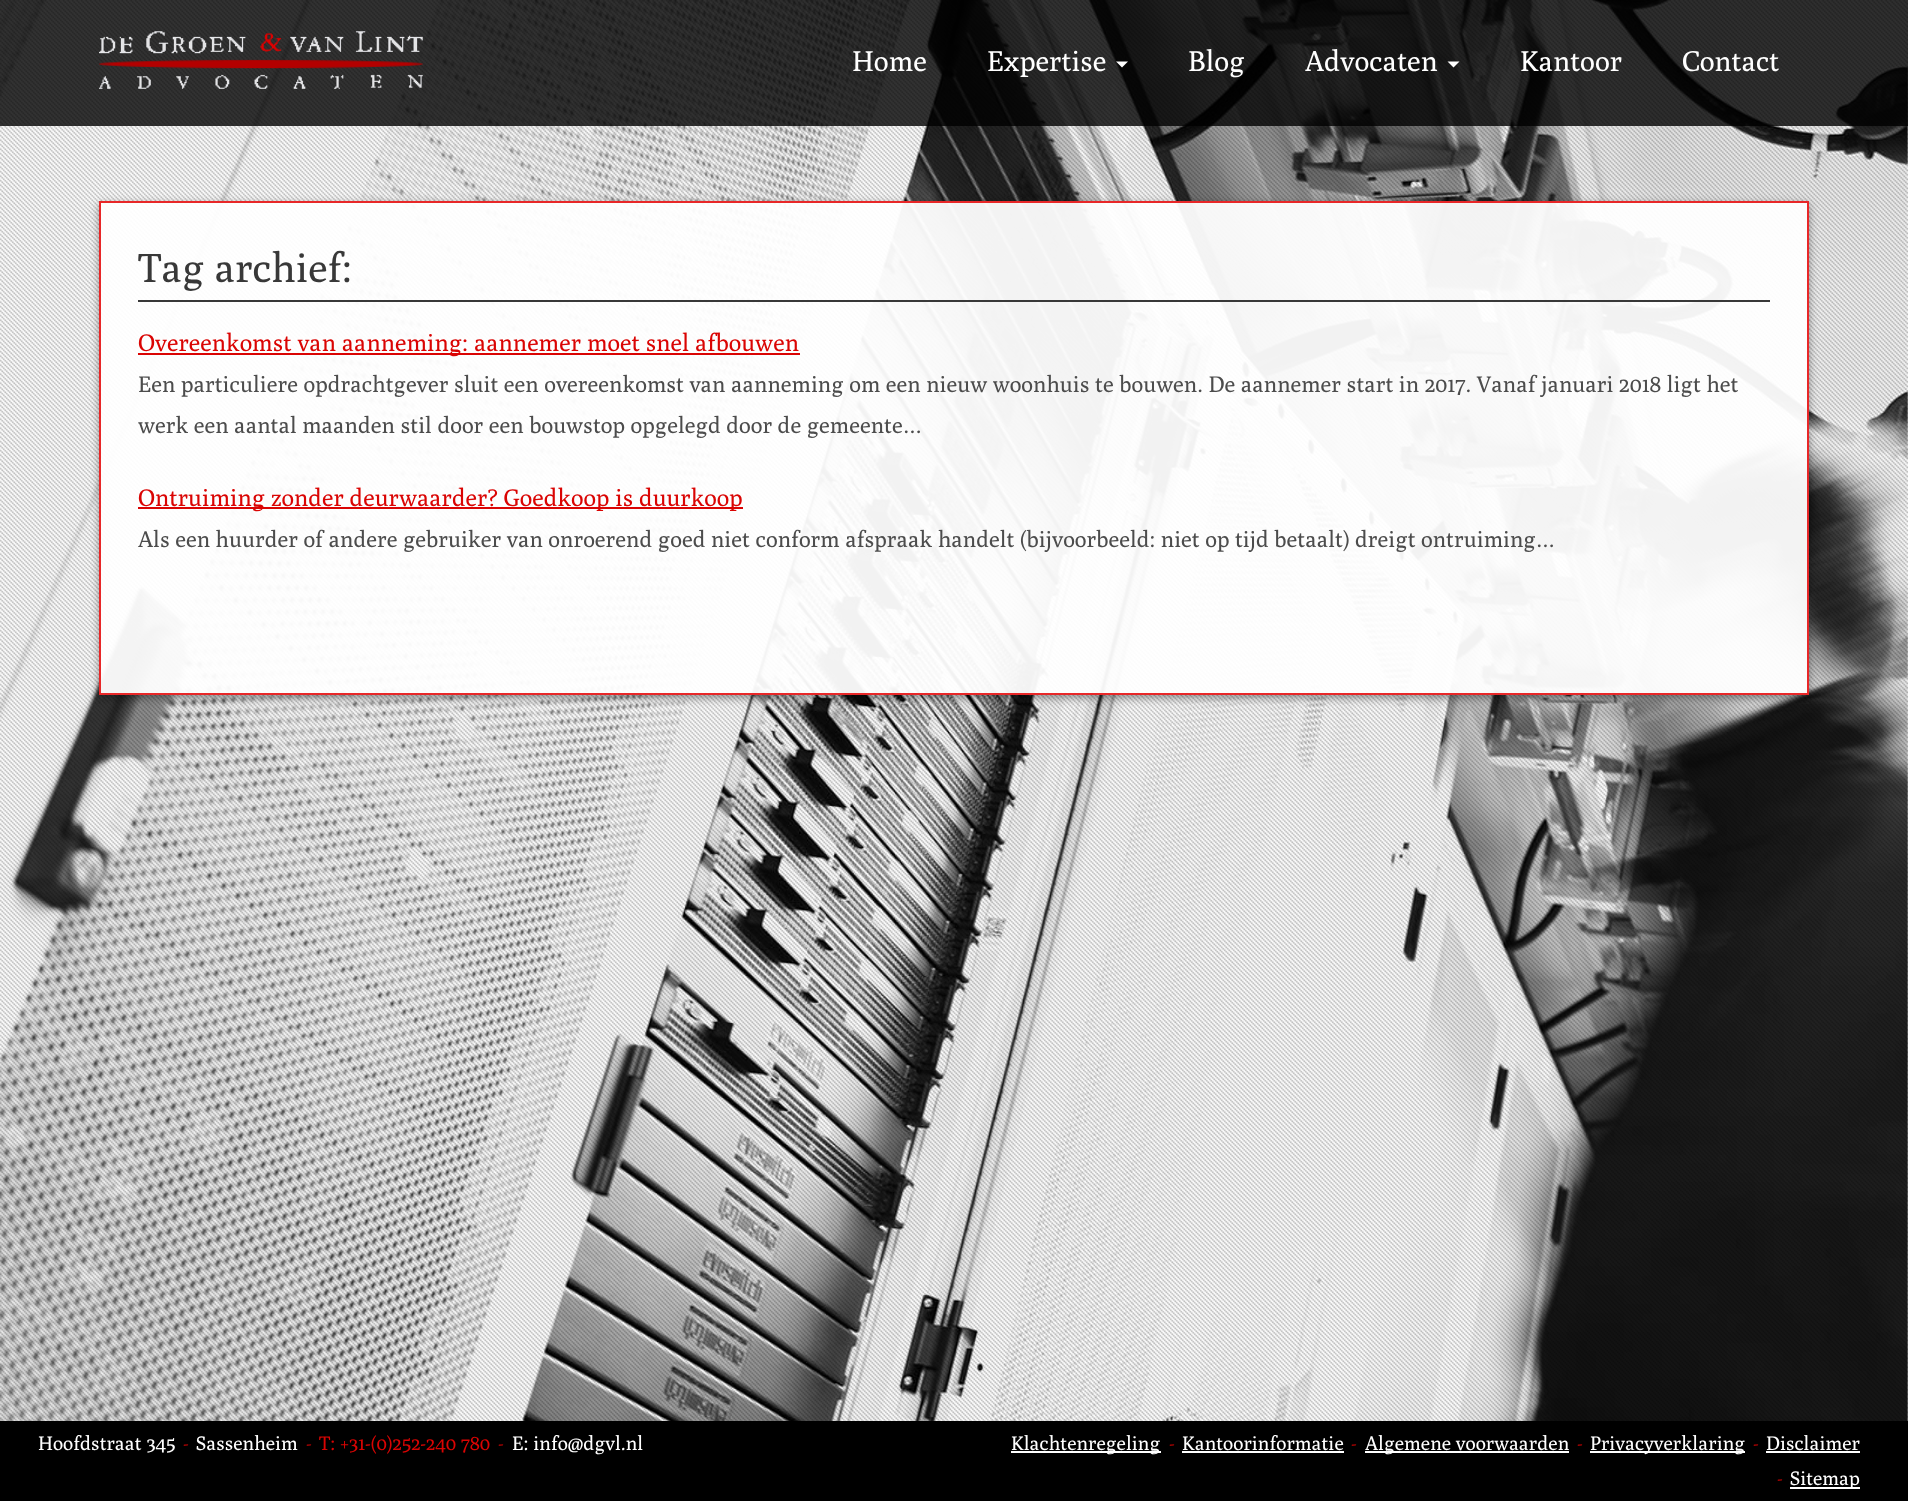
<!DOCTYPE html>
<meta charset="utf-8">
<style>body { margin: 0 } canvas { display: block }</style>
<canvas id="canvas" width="1908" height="1501"></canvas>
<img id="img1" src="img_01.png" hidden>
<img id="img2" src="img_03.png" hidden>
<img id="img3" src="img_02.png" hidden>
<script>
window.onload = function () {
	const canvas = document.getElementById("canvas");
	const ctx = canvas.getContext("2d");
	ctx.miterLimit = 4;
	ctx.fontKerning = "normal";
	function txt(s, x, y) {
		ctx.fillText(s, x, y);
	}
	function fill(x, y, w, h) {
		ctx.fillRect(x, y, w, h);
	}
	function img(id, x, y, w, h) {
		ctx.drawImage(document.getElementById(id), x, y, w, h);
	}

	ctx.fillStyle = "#FFFFFF";
	fill(0, 0, 1908, 1501);
	img("img1", 0, 0, 1908, 1421);
	img("img2", 0, 0, 1908, 1421);
	ctx.fillStyle = "rgba(0, 0, 0, 0.8)";
	fill(0, 0, 1908, 126);
	img("img3", 99, 31, 324, 58);
	ctx.fillStyle = "#FFFFFF";
	ctx.beginPath();
	ctx.moveTo(1116, 61.5);
	ctx.lineTo(1128, 61.5);
	ctx.lineTo(1122, 67.5);
	ctx.closePath();
	ctx.fill();
	ctx.beginPath();
	ctx.moveTo(1447.5, 61.5);
	ctx.lineTo(1459.5, 61.5);
	ctx.lineTo(1453.5, 67.5);
	ctx.closePath();
	ctx.fill();
	ctx.save();
	ctx.beginPath();
	ctx.moveTo(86, 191);
	ctx.lineTo(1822, 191);
	ctx.lineTo(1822, 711);
	ctx.lineTo(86, 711);
	ctx.closePath();
	ctx.moveTo(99, 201);
	ctx.lineTo(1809, 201);
	ctx.lineTo(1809, 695);
	ctx.lineTo(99, 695);
	ctx.closePath();
	ctx.clip("evenodd");
	ctx.fillStyle = "rgba(0, 0, 0, 0.4)";
	ctx.filter = "blur(4px)";
	ctx.beginPath();
	ctx.rect(99, 204, 1710, 494);
	ctx.fill();
	ctx.filter = "none";
	ctx.restore();
	ctx.fillStyle = "rgba(255, 255, 255, 0.95)";
	ctx.beginPath();
	ctx.rect(100, 202, 1708, 492);
	ctx.fill();
	ctx.strokeStyle = "#E82728";
	ctx.lineWidth = 2;
	ctx.stroke();
	ctx.fillStyle = "#383838";
	fill(138, 300, 1632, 2);
	ctx.fillStyle = "#DA0403";
	fill(138, 353, 662, 2);
	fill(138, 507, 605, 2);
	ctx.fillStyle = "#000000";
	fill(0, 1421, 1908, 80);
	ctx.fillStyle = "#FFFFFF";
	fill(1011, 1451, 150, 2);
	fill(1182, 1451, 162, 2);
	fill(1365, 1451, 204, 2);
	fill(1590, 1451, 155, 2);
	fill(1766, 1451, 94, 2);
	fill(1790, 1487, 70, 2);
	ctx.font = "28.5px Poly";
	txt("Home", 852, 71);
	txt("Expertise", 987, 71);
	txt("Blog", 1188, 71);
	txt("Advocaten", 1305, 71);
	txt("Kantoor", 1520, 71);
	txt("Contact", 1682, 71);
	ctx.font = "40.5px Poly";
	ctx.fillStyle = "#383838";
	txt("Tag archief:", 138, 282);
	ctx.font = "24px Poly";
	ctx.fillStyle = "#DA0403";
	txt("Overeenkomst van aanneming: aannemer moet snel afbouwen", 138, 351);
	ctx.font = "22.5px Poly";
	ctx.fillStyle = "#4C4C4C";
	txt("Een particuliere opdrachtgever sluit een overeenkomst van aanneming om een nieuw woonhuis te bouwen. De aannemer start in 2017. Vanaf januari 2018 ligt het", 138, 392);
	txt("werk een aantal maanden stil door een bouwstop opgelegd door de gemeente…", 138, 433);
	ctx.font = "24px Poly";
	ctx.fillStyle = "#DA0403";
	txt("Ontruiming zonder deurwaarder? Goedkoop is duurkoop", 138, 506);
	ctx.font = "22.5px Poly";
	ctx.fillStyle = "#4C4C4C";
	txt("Als een huurder of andere gebruiker van onroerend goed niet conform afspraak handelt (bijvoorbeeld: niet op tijd betaalt) dreigt ontruiming…", 138, 547);
	ctx.font = "19.5px Poly";
	ctx.fillStyle = "#FFFFFF";
	txt("Hoofdstraat 345", 38, 1450);
	ctx.font = "italic 19.5px Poly";
	ctx.fillStyle = "#A80302";
	txt("-", 183, 1450);
	ctx.font = "19.5px Poly";
	ctx.fillStyle = "#FFFFFF";
	txt("Sassenheim", 196, 1450);
	ctx.font = "italic 19.5px Poly";
	ctx.fillStyle = "#A80302";
	txt("-", 306, 1450);
	ctx.font = "19.5px Poly";
	ctx.fillStyle = "#DA0403";
	txt("T: +31-(0)252-240 780", 319, 1450);
	ctx.font = "italic 19.5px Poly";
	ctx.fillStyle = "#A80302";
	txt("-", 498, 1450);
	ctx.font = "19.5px Poly";
	ctx.fillStyle = "#FFFFFF";
	txt("E: info@dgvl.nl", 512, 1450);
	txt("Klachtenregeling", 1011, 1450);
	ctx.fillStyle = "#A80302";
	txt("-", 1169, 1450);
	ctx.fillStyle = "#FFFFFF";
	txt("Kantoorinformatie", 1182, 1450);
	ctx.fillStyle = "#A80302";
	txt("-", 1351, 1450);
	ctx.fillStyle = "#FFFFFF";
	txt("Algemene voorwaarden", 1365, 1450);
	ctx.fillStyle = "#A80302";
	txt("-", 1577, 1450);
	ctx.fillStyle = "#FFFFFF";
	txt("Privacyverklaring", 1590, 1450);
	ctx.fillStyle = "#A80302";
	txt("-", 1753, 1450);
	ctx.fillStyle = "#FFFFFF";
	txt("Disclaimer", 1766, 1450);
	ctx.fillStyle = "#A80302";
	txt("-", 1777, 1485);
	ctx.fillStyle = "#FFFFFF";
	txt("Sitemap", 1790, 1485);
};
</script>
